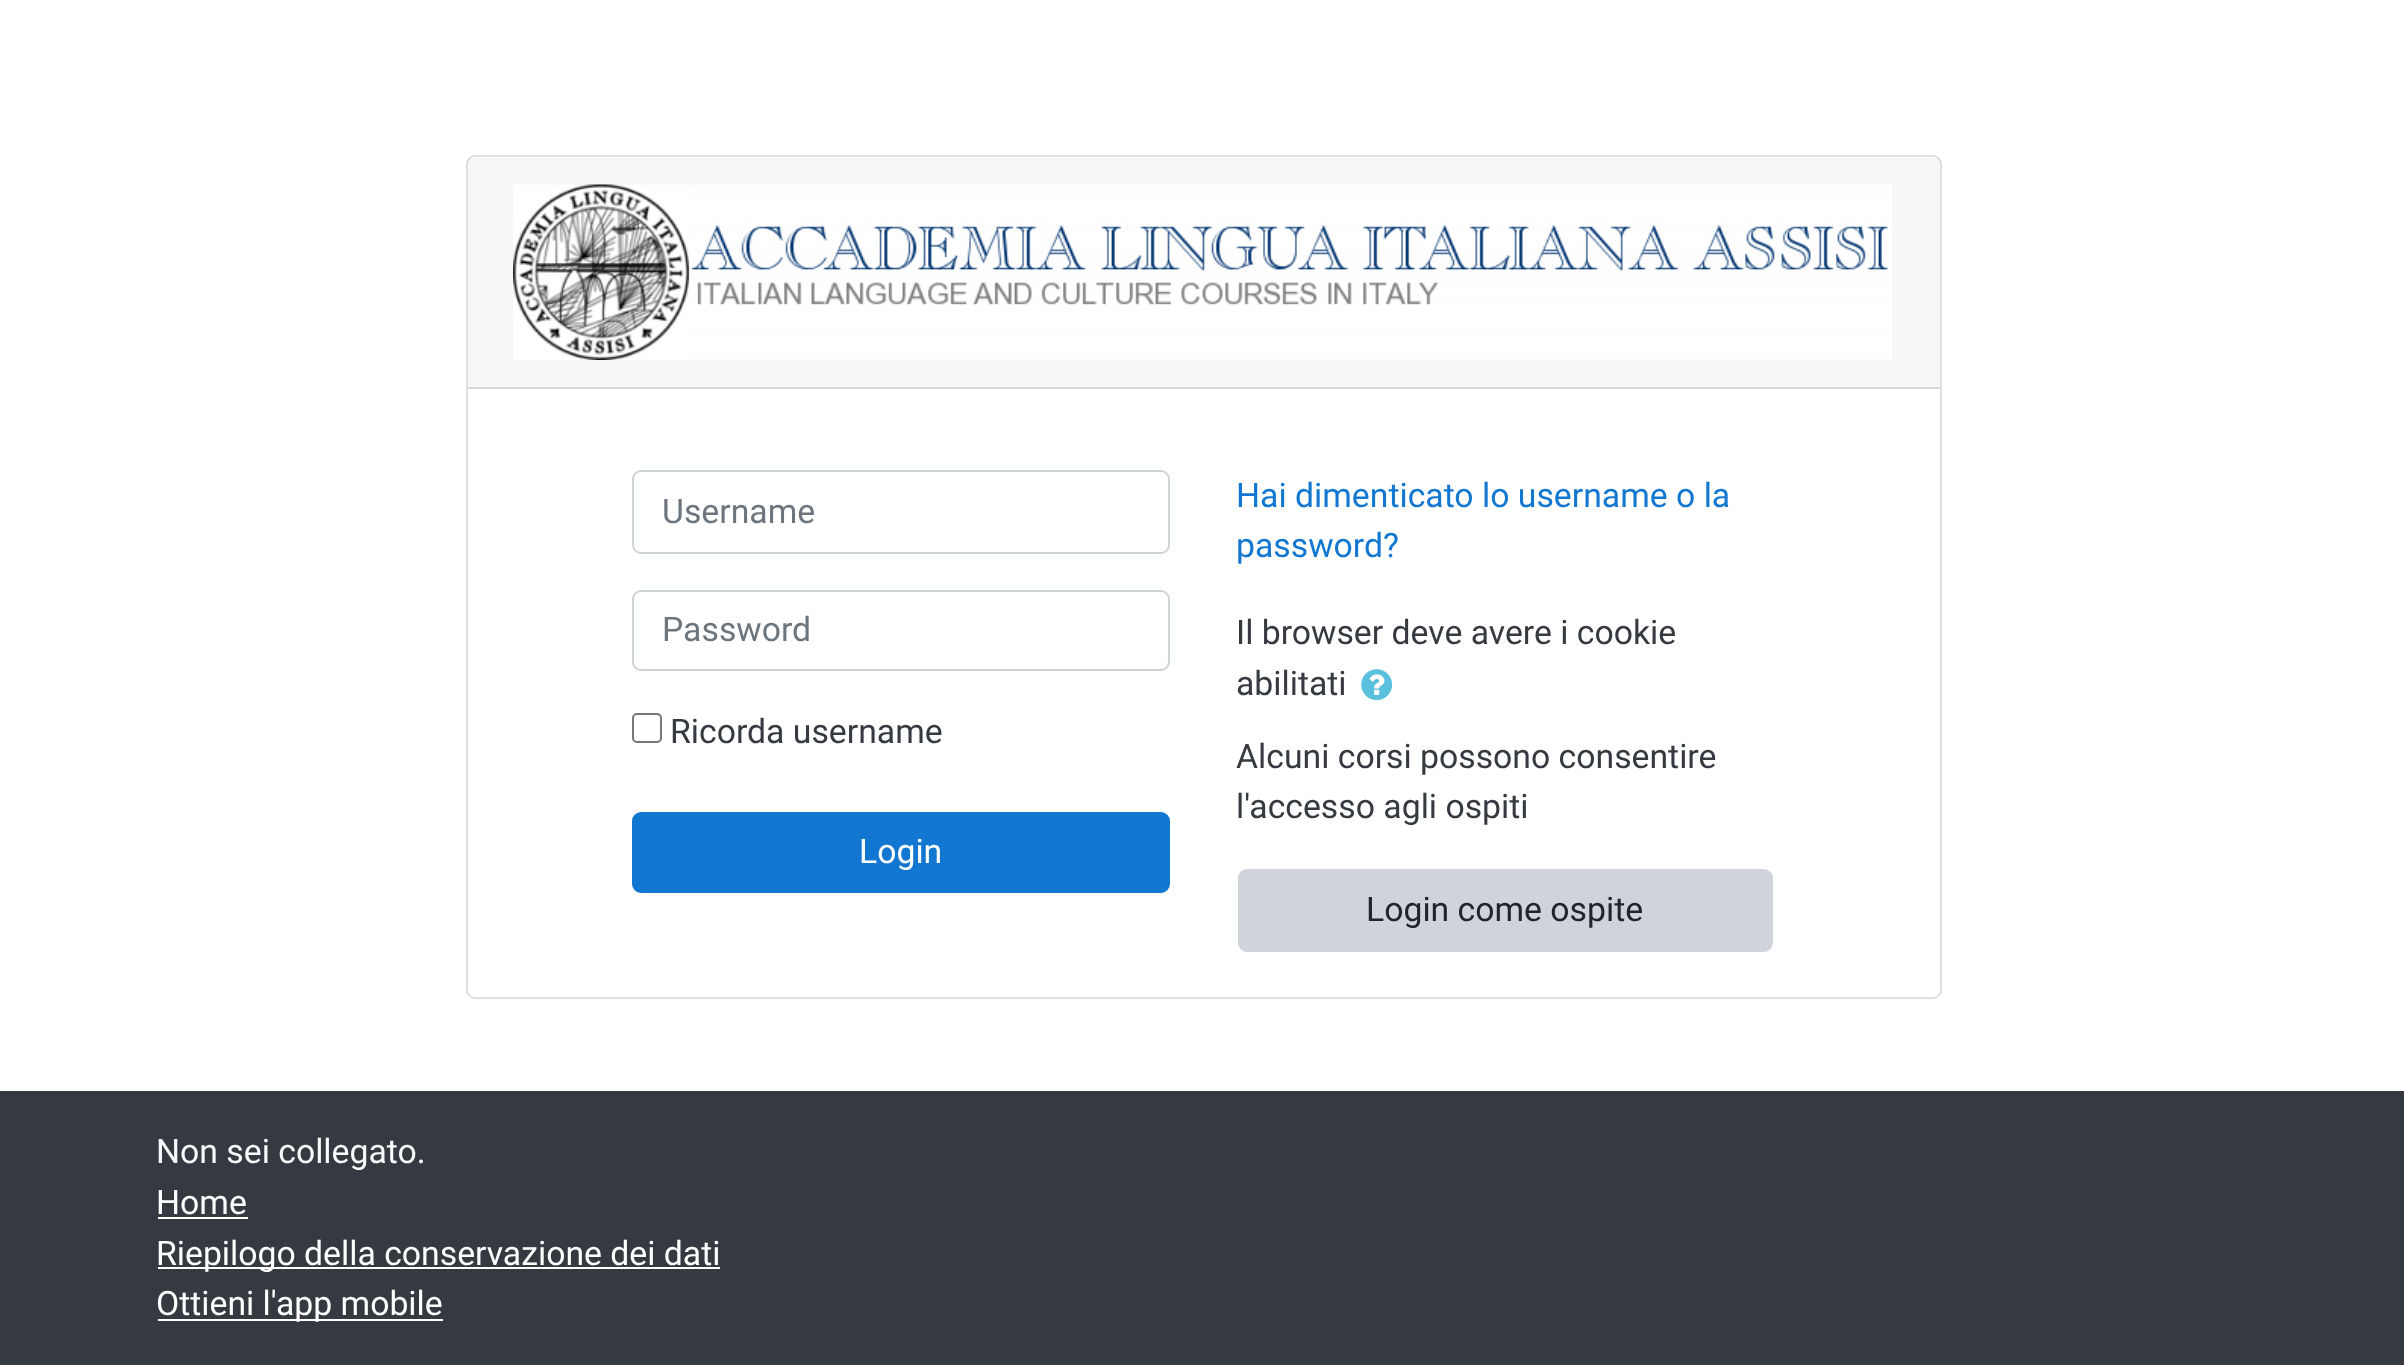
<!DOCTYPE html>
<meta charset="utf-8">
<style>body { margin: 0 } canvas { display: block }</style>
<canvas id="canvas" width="2404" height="1365"></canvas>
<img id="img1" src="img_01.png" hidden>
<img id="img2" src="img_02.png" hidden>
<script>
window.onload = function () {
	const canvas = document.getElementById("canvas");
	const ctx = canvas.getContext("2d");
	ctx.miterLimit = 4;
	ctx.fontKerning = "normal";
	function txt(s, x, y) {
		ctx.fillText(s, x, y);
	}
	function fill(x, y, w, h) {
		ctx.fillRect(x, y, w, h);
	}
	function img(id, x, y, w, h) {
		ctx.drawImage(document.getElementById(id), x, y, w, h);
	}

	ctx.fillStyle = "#FFFFFF";
	fill(0, 0, 2404, 1365);
	ctx.beginPath();
	ctx.roundRect(467, 156, 1474, 842, 8);
	ctx.strokeStyle = "#DFDFDF";
	ctx.lineWidth = 2;
	ctx.stroke();
	ctx.fillStyle = "rgba(0, 0, 0, 0.03)";
	fill(468, 158, 1472, 229);
	ctx.fillStyle = "#D8D8D8";
	fill(468, 387, 1472, 2);
	img("img1", 513, 184, 1379, 176);
	ctx.beginPath();
	ctx.roundRect(633, 471, 536, 82, 8);
	ctx.strokeStyle = "#CED4DA";
	ctx.stroke();
	ctx.beginPath();
	ctx.roundRect(633, 591, 536, 79, 8);
	ctx.stroke();
	ctx.beginPath();
	ctx.roundRect(633, 714, 28, 28, 4);
	ctx.strokeStyle = "#767676";
	ctx.stroke();
	ctx.fillStyle = "#1177D1";
	ctx.beginPath();
	ctx.roundRect(633, 813, 536, 79, 8);
	ctx.fill();
	ctx.strokeStyle = "#1177D1";
	ctx.stroke();
	img("img2", 1361, 669, 32, 32);
	ctx.fillStyle = "#CED4DA";
	ctx.beginPath();
	ctx.roundRect(1239, 870, 533, 81, 8);
	ctx.fill();
	ctx.strokeStyle = "#CED4DA";
	ctx.stroke();
	ctx.fillStyle = "#343A40";
	fill(0, 1091, 2404, 274);
	ctx.fillStyle = "#FFFFFF";
	fill(158, 1217, 90, 2);
	fill(158, 1267, 562, 2);
	fill(158, 1319, 285, 2);
	ctx.font = "33.75px Roboto";
	ctx.fillStyle = "#6C757D";
	txt("Username", 662, 523);
	txt("Password", 662, 641);
	ctx.fillStyle = "#343A40";
	txt("Ricorda username", 670, 743);
	ctx.fillStyle = "#FFFFFF";
	txt("Login", 859, 863);
	ctx.fillStyle = "#1177D1";
	txt("Hai dimenticato lo username o la", 1236, 507);
	txt("password?", 1236, 557);
	ctx.fillStyle = "#343A40";
	txt("Il browser deve avere i cookie", 1236, 644);
	txt("abilitati", 1236, 695);
	txt("Alcuni corsi possono consentire", 1236, 768);
	txt("l'accesso agli ospiti", 1236, 818);
	ctx.fillStyle = "#212529";
	txt("Login come ospite", 1366, 921);
	ctx.fillStyle = "#F8F9FA";
	txt("Non sei collegato.", 156, 1163);
	ctx.fillStyle = "#FFFFFF";
	txt("Home", 156, 1214);
	txt("Riepilogo della conservazione dei dati", 156, 1265);
	txt("Ottieni l'app mobile", 156, 1315);
};
</script>
